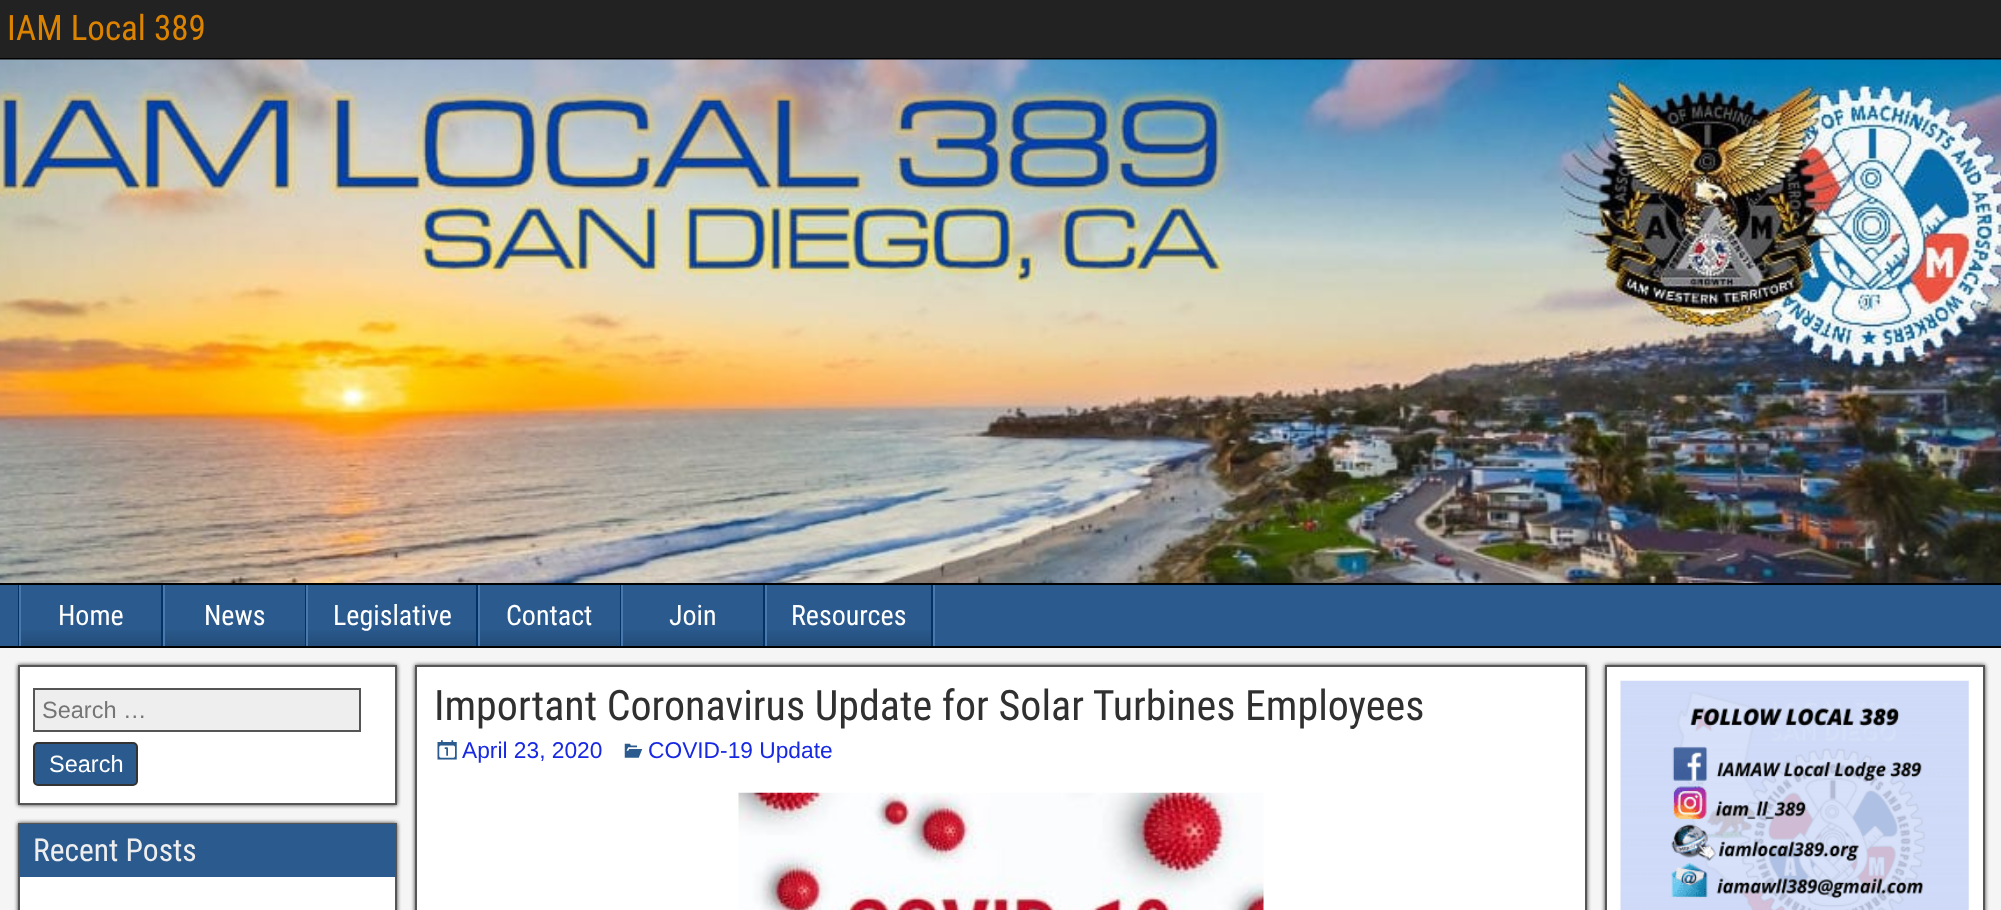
<!DOCTYPE html>
<meta charset="utf-8">
<style>body { margin: 0 } canvas { display: block }</style>
<canvas id="canvas" width="2001" height="910"></canvas>
<img id="img1" src="img_01.png" hidden>
<img id="img2" src="img_02.png" hidden>
<img id="img3" src="img_03.png" hidden>
<img id="img4" src="img_04.png" hidden>
<img id="img5" src="img_05.png" hidden>
<script>
window.onload = function () {
	const canvas = document.getElementById("canvas");
	const ctx = canvas.getContext("2d");
	ctx.miterLimit = 4;
	ctx.fontKerning = "normal";
	function txt(s, x, y) {
		ctx.fillText(s, x, y);
	}
	function fill(x, y, w, h) {
		ctx.fillRect(x, y, w, h);
	}
	function img(id, x, y, w, h) {
		ctx.drawImage(document.getElementById(id), x, y, w, h);
	}
	let gradient;

	ctx.fillStyle = "#222222";
	fill(0, 0, 2001, 910);
	ctx.fillStyle = "#000000";
	fill(0, 58, 2001, 2);
	img("img1", 0, 59, 2001, 524);
	fill(0, 583, 2001, 2);
	ctx.fillStyle = "#2A5A8E";
	fill(0, 585, 2001, 61);
	ctx.fillStyle = "#000000";
	fill(0, 646, 2001, 2);
	ctx.fillStyle = "#4878AC";
	fill(933, 585, 2, 61);
	ctx.fillStyle = "#023266";
	fill(18, 585, 1, 61);
	gradient = ctx.createLinearGradient(91, 585, 91, 646);
	gradient.addColorStop(0.7, "rgba(0, 0, 0, 0)");
	gradient.addColorStop(1, "rgba(0, 0, 0, 0.15)");
	ctx.fillStyle = gradient;
	fill(21, 630, 140, 16);
	ctx.fillStyle = "#023266";
	fill(161, 585, 2, 61);
	ctx.fillStyle = "#4878AC";
	fill(19, 585, 2, 61);
	gradient = ctx.createLinearGradient(235, 585, 235, 646);
	gradient.addColorStop(0.7, "#2A5A8E");
	gradient.addColorStop(1, "#244D79");
	ctx.fillStyle = gradient;
	fill(165, 630, 140, 16);
	ctx.fillStyle = "#023266";
	fill(305, 585, 1, 61);
	ctx.fillStyle = "#4878AC";
	fill(163, 585, 2, 61);
	gradient = ctx.createLinearGradient(392, 585, 392, 646);
	gradient.addColorStop(0.7, "rgba(0, 0, 0, 0)");
	gradient.addColorStop(1, "rgba(0, 0, 0, 0.15)");
	ctx.fillStyle = gradient;
	fill(308, 630, 168, 16);
	ctx.fillStyle = "#023266";
	fill(476, 585, 2, 61);
	ctx.fillStyle = "#4878AC";
	fill(306, 585, 2, 61);
	gradient = ctx.createLinearGradient(550, 585, 550, 646);
	gradient.addColorStop(0.7, "#2A5A8E");
	gradient.addColorStop(1, "#244D79");
	ctx.fillStyle = gradient;
	fill(480, 630, 140, 16);
	ctx.fillStyle = "#023266";
	fill(620, 585, 1, 61);
	ctx.fillStyle = "#4878AC";
	fill(478, 585, 2, 61);
	gradient = ctx.createLinearGradient(693, 585, 693, 646);
	gradient.addColorStop(0.7, "rgba(0, 0, 0, 0)");
	gradient.addColorStop(1, "rgba(0, 0, 0, 0.15)");
	ctx.fillStyle = gradient;
	fill(623, 630, 140, 16);
	ctx.fillStyle = "#023266";
	fill(763, 585, 2, 61);
	ctx.fillStyle = "#4878AC";
	fill(621, 585, 2, 61);
	gradient = ctx.createLinearGradient(849, 585, 849, 646);
	gradient.addColorStop(0.7, "#2A5A8E");
	gradient.addColorStop(1, "#244D79");
	ctx.fillStyle = gradient;
	fill(767, 630, 164, 16);
	ctx.fillStyle = "#023266";
	fill(931, 585, 2, 61);
	ctx.fillStyle = "#4878AC";
	fill(765, 585, 2, 61);
	ctx.fillStyle = "#F5F5F5";
	fill(0, 648, 2001, 262);
	ctx.fillStyle = "#333333";
	ctx.filter = "blur(2px)";
	ctx.beginPath();
	ctx.rect(18, 665, 379, 140);
	ctx.fill();
	ctx.filter = "none";
	ctx.fillStyle = "#FFFFFF";
	ctx.beginPath();
	ctx.rect(19, 666, 377, 138);
	ctx.fill();
	ctx.strokeStyle = "#555555";
	ctx.lineWidth = 2;
	ctx.stroke();
	ctx.fillStyle = "#EEEEEE";
	ctx.beginPath();
	ctx.rect(34, 689, 326, 42);
	ctx.fill();
	ctx.stroke();
	ctx.fillStyle = "#2A5A8E";
	ctx.beginPath();
	ctx.roundRect(34, 743, 103, 42, 4);
	ctx.fill();
	ctx.strokeStyle = "#333333";
	ctx.stroke();
	ctx.fillStyle = "#333333";
	ctx.filter = "blur(2px)";
	ctx.beginPath();
	ctx.rect(18, 823, 379, 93);
	ctx.fill();
	ctx.filter = "none";
	ctx.fillStyle = "#FFFFFF";
	fill(20, 877, 375, 33);
	ctx.strokeStyle = "#555555";
	ctx.strokeRect(19, 824, 377, 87);
	ctx.fillStyle = "#2A5A8E";
	fill(19, 824, 377, 53);
	ctx.fillStyle = "#333333";
	ctx.filter = "blur(2px)";
	ctx.beginPath();
	ctx.rect(415, 665, 1172, 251);
	ctx.fill();
	ctx.filter = "none";
	ctx.fillStyle = "#FFFFFF";
	ctx.beginPath();
	ctx.rect(416, 666, 1170, 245);
	ctx.fill();
	ctx.stroke();
	img("img2", 437, 740, 20, 20);
	img("img3", 624, 743, 19, 15);
	img("img4", 738, 792, 526, 118);
	ctx.fillStyle = "#333333";
	ctx.filter = "blur(2px)";
	ctx.beginPath();
	ctx.rect(1605, 665, 380, 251);
	ctx.fill();
	ctx.filter = "none";
	ctx.fillStyle = "#FFFFFF";
	ctx.beginPath();
	ctx.rect(1606, 666, 378, 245);
	ctx.fill();
	ctx.stroke();
	img("img5", 1620, 680, 349, 230);
	ctx.font = "35px Roboto Condensed";
	ctx.fillStyle = "#DC8300";
	txt("IAM Local 389", 7, 40);
	ctx.font = "28px Roboto Condensed";
	ctx.fillStyle = "#FFFFFF";
	txt("Home", 58, 625);
	txt("News", 204, 625);
	txt("Legislative", 333, 625);
	txt("Contact", 506, 625);
	txt("Join", 669, 625);
	txt("Resources", 791, 625);
	ctx.font = "23.5px Liberation Sans";
	ctx.fillStyle = "#757575";
	txt("Search …", 42, 718);
	ctx.fillStyle = "#FFFFFF";
	txt("Search", 49, 772);
	ctx.font = "31.5px Roboto Condensed";
	ctx.fillStyle = "#EEEEEE";
	txt("Recent Posts", 33, 861);
	ctx.font = "42px Roboto Condensed";
	ctx.fillStyle = "#303030";
	txt("Important Coronavirus Update for Solar Turbines Employees", 434, 720);
	ctx.font = "22.75px Liberation Sans";
	ctx.fillStyle = "#1829E2";
	txt("April 23, 2020", 462, 758);
	txt("COVID-19 Update", 648, 758);
};
</script>
